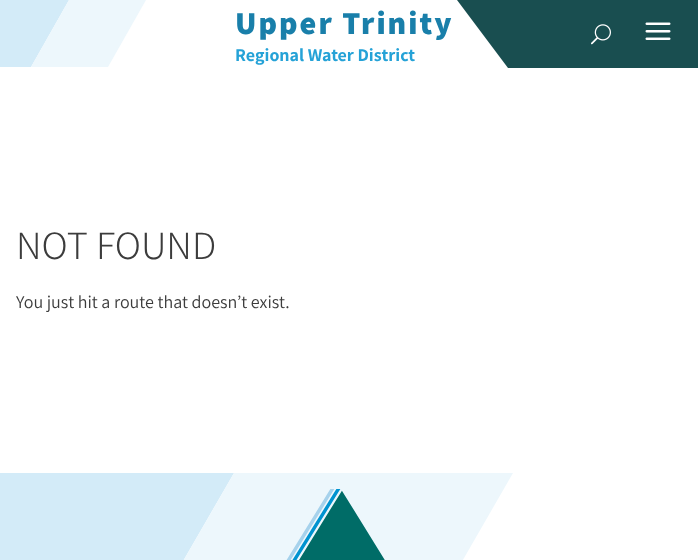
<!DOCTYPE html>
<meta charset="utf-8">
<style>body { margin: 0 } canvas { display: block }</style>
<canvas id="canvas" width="698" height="560"></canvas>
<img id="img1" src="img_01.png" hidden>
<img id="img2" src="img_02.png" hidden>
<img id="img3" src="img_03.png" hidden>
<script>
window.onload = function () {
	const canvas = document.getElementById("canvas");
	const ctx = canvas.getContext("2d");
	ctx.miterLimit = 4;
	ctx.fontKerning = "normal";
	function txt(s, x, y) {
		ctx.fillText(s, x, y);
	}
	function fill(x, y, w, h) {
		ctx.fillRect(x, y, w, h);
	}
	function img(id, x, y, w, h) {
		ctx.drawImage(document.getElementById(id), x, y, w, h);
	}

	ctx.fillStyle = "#FFFFFF";
	fill(0, 0, 698, 560);
	ctx.fillStyle = "#194E50";
	fill(457, 0, 241, 68);
	ctx.fillStyle = "#FFFFFF";
	ctx.beginPath();
	ctx.moveTo(0, 0);
	ctx.lineTo(0, 68);
	ctx.lineTo(508, 68);
	ctx.lineTo(457, 0);
	ctx.closePath();
	ctx.fill();
	ctx.fillStyle = "#D3EBF8";
	ctx.beginPath();
	ctx.moveTo(-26, 0);
	ctx.lineTo(69, 0);
	ctx.lineTo(31, 67);
	ctx.lineTo(-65, 67);
	ctx.closePath();
	ctx.fill();
	ctx.fillStyle = "#EDF7FC";
	ctx.beginPath();
	ctx.moveTo(69, 0);
	ctx.lineTo(146, 0);
	ctx.lineTo(108, 67);
	ctx.lineTo(31, 67);
	ctx.closePath();
	ctx.fill();
	img("img1", 591, 24, 20, 21);
	img("img2", 645, 22, 26, 18);
	ctx.fillStyle = "#D3EBF8";
	ctx.beginPath();
	ctx.moveTo(-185, 473);
	ctx.lineTo(234, 473);
	ctx.lineTo(-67, 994);
	ctx.lineTo(-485, 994);
	ctx.closePath();
	ctx.fill();
	ctx.fillStyle = "#EDF7FC";
	ctx.beginPath();
	ctx.moveTo(234, 473);
	ctx.lineTo(513, 473);
	ctx.lineTo(213, 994);
	ctx.lineTo(-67, 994);
	ctx.closePath();
	ctx.fill();
	img("img3", 286, 489, 99, 71);
	ctx.letterSpacing = "2px";
	ctx.font = "800 32px Assistant";
	ctx.fillStyle = "#197FAA";
	txt("Upper Trinity", 235, 34);
	ctx.letterSpacing = "0px";
	ctx.font = "bold 18px Assistant";
	ctx.fillStyle = "#25A2D7";
	txt("Regional Water District", 235, 61);
	ctx.font = "300 40px Assistant";
	ctx.fillStyle = "#3C3C3C";
	txt("NOT FOUND", 16, 259);
	ctx.font = "18px Assistant";
	txt("You just hit a route that doesn’t exist.", 16, 308);
};
</script>
